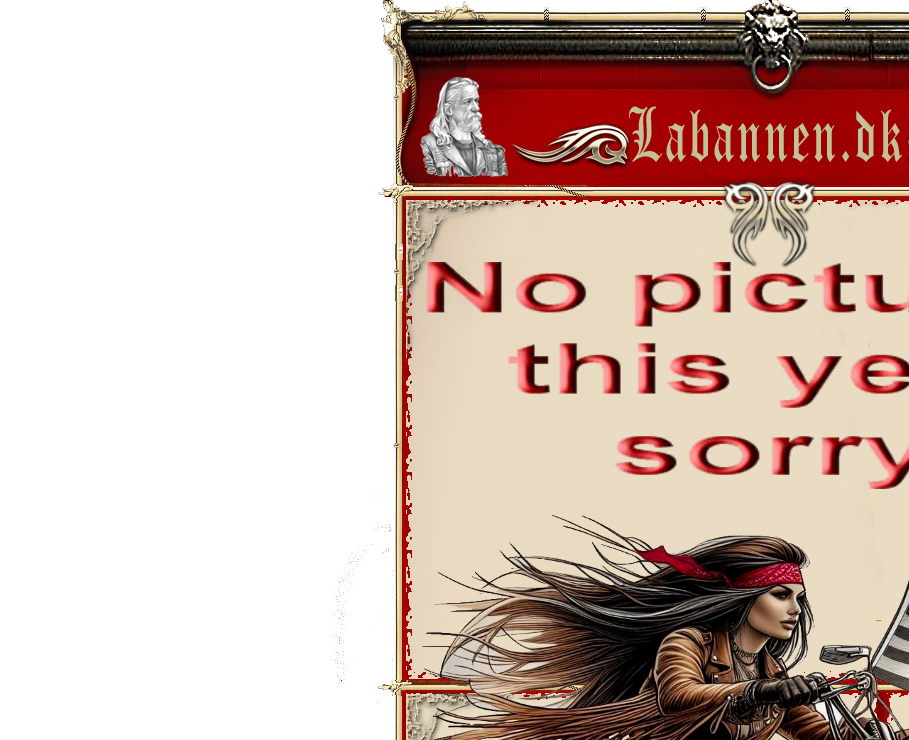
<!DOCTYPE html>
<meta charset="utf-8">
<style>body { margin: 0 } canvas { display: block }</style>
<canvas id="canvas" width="909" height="740"></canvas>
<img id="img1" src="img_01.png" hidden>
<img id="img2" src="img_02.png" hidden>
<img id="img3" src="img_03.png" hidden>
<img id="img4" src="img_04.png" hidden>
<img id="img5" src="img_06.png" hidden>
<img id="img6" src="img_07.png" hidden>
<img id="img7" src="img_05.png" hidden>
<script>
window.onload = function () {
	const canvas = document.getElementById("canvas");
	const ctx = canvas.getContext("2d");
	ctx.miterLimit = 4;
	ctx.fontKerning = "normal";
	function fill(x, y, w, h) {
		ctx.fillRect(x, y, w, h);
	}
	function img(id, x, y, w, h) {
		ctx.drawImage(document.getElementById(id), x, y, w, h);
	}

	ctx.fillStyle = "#FFFFFF";
	fill(0, 0, 909, 740);
	img("img1", 374, 0, 535, 196);
	img("img2", 331, 196, 578, 488);
	img("img3", 384, 196, 524, 1);
	img("img4", 426, 262, 483, 227);
	img("img5", 377, 684, 504, 56);
	img("img6", 881, 684, 28, 49);
	img("img7", 421, 515, 488, 225);
};
</script>
